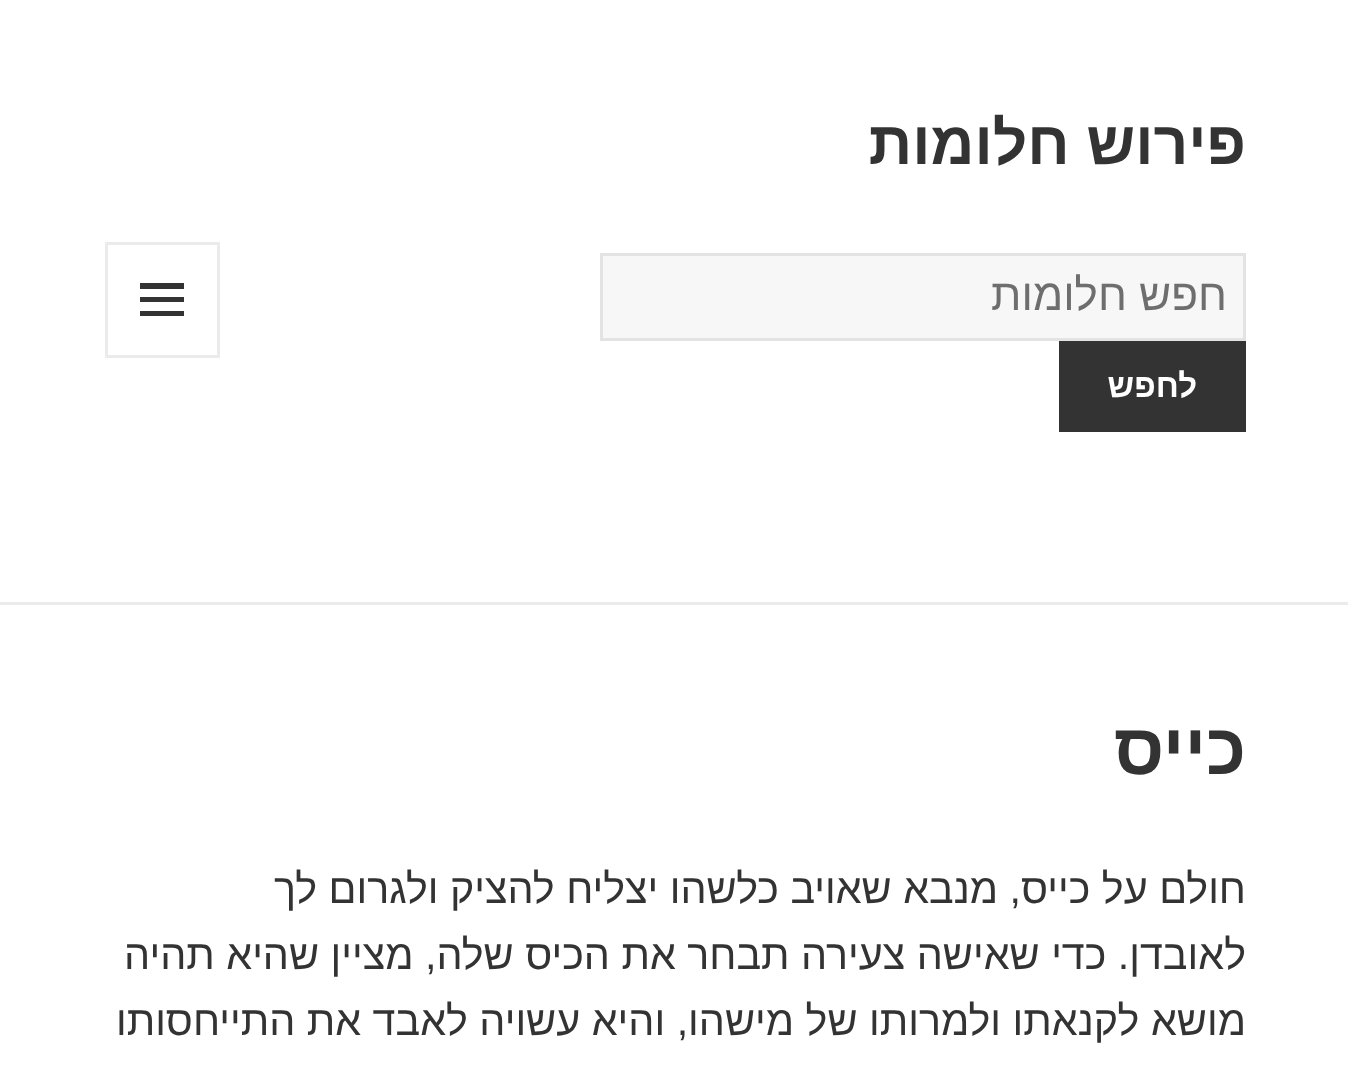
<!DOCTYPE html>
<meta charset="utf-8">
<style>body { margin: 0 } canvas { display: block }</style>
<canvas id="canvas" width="1348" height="1089"></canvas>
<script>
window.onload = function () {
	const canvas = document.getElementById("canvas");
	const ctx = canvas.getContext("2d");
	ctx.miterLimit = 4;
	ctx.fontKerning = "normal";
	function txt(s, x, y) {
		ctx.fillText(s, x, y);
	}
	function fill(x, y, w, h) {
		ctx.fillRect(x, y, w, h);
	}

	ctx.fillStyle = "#FFFFFF";
	fill(0, 0, 1348, 1089);
	ctx.fillStyle = "#EBEBEB";
	fill(0, 602, 1348, 3);
	ctx.fillStyle = "#F7F7F7";
	ctx.beginPath();
	ctx.rect(601.5, 254.5, 643, 85);
	ctx.fill();
	ctx.strokeStyle = "#E3E3E3";
	ctx.lineWidth = 3;
	ctx.stroke();
	ctx.fillStyle = "#333333";
	fill(1059, 341, 187, 91);
	ctx.strokeStyle = "#EBEBEB";
	ctx.strokeRect(106.5, 243.5, 112, 113);
	ctx.beginPath();
	ctx.moveTo(140, 316);
	ctx.lineTo(140, 311);
	ctx.lineTo(184, 311);
	ctx.lineTo(184, 316);
	ctx.closePath();
	ctx.moveTo(140, 283);
	ctx.lineTo(184, 283);
	ctx.lineTo(184, 289);
	ctx.lineTo(140, 289);
	ctx.closePath();
	ctx.moveTo(140, 302);
	ctx.lineTo(140, 297);
	ctx.lineTo(184, 297);
	ctx.lineTo(184, 302);
	ctx.closePath();
	ctx.fill();
	ctx.direction = "rtl";
	ctx.font = "bold 60.5px Liberation Sans";
	txt("פירוש חלומות", 1246, 164);
	ctx.font = "44px Liberation Sans";
	ctx.fillStyle = "#6E6E6E";
	txt("חפש חלומות", 1227, 310);
	ctx.font = "bold 33px Liberation Sans";
	ctx.fillStyle = "#FFFFFF";
	txt("לחפש", 1197, 397);
	ctx.font = "bold 72px Liberation Sans";
	ctx.fillStyle = "#333333";
	txt("כייס", 1246, 774);
	ctx.font = "41.25px Liberation Sans";
	txt("חולם על כייס, מנבא שאויב כלשהו יצליח להציק ולגרום לך", 1246, 903);
	txt("לאובדן. כדי שאישה צעירה תבחר את הכיס שלה, מציין שהיא תהיה", 1246, 969);
	txt("מושא לקנאתו ולמרותו של מישהו, והיא עשויה לאבד את התייחסותו", 1246, 1035);
};
</script>
